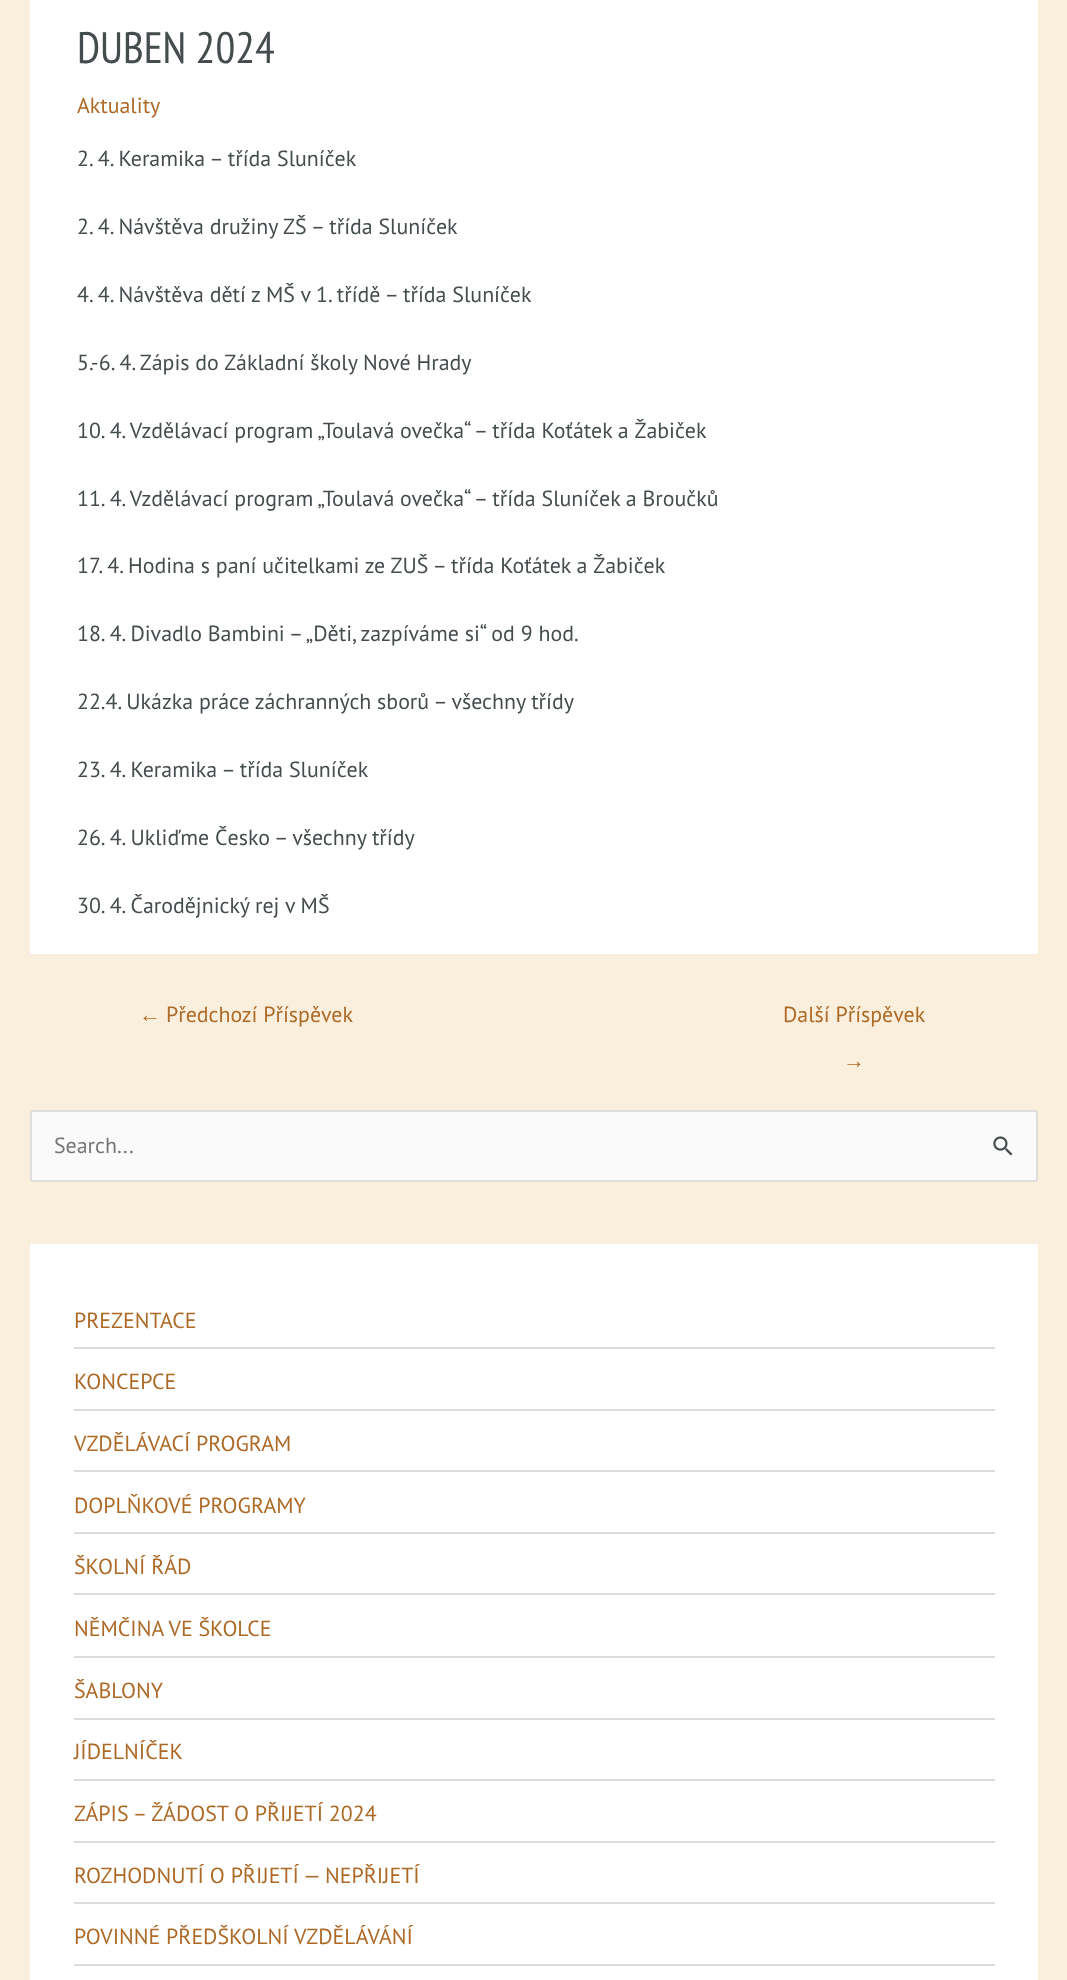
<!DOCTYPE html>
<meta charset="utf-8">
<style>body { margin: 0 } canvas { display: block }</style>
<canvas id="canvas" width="1067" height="1980"></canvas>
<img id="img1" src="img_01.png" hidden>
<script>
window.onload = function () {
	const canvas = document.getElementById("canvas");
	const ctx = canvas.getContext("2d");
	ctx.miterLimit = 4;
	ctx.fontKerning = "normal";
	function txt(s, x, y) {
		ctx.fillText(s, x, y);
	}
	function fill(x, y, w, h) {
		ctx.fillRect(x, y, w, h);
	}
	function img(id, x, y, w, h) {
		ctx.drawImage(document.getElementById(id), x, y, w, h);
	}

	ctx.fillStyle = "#FAEEDD";
	fill(0, 0, 1067, 1980);
	ctx.fillStyle = "#FFFFFF";
	fill(30, 0, 1008, 954);
	ctx.fillStyle = "#FAFAFA";
	ctx.beginPath();
	ctx.roundRect(31, 1111, 1006, 70, 2);
	ctx.fill();
	ctx.strokeStyle = "#DDDDDD";
	ctx.lineWidth = 2;
	ctx.stroke();
	img("img1", 993, 1136, 20, 20);
	ctx.fillStyle = "#FFFFFF";
	fill(30, 1244, 1008, 736);
	ctx.fillStyle = "#DDDDDD";
	fill(74, 1347, 921, 2);
	fill(74, 1409, 921, 2);
	fill(74, 1470, 921, 2);
	fill(74, 1532, 921, 2);
	fill(74, 1593, 921, 2);
	fill(74, 1656, 921, 2);
	fill(74, 1718, 921, 2);
	fill(74, 1779, 921, 2);
	fill(74, 1841, 921, 2);
	fill(74, 1902, 921, 2);
	fill(74, 1964, 921, 2);
	ctx.font = "44px PT Sans Narrow";
	ctx.fillStyle = "#444C4D";
	txt("DUBEN 2024", 77, 63);
	ctx.font = "21.9px PT Sans";
	ctx.fillStyle = "#AD6A27";
	txt("Aktuality", 77, 113);
	ctx.fillStyle = "#444C4D";
	txt("2. 4. Keramika – třída Sluníček", 77, 166);
	txt("2. 4. Návštěva družiny ZŠ – třída Sluníček", 77, 234);
	txt("4. 4. Návštěva dětí z MŠ v 1. třídě – třída Sluníček", 77, 302);
	txt("5.-6. 4. Zápis do Základní školy Nové Hrady", 77, 370);
	txt("10. 4. Vzdělávací program „Toulavá ovečka“ – třída Koťátek a Žabiček", 77, 438);
	txt("11. 4. Vzdělávací program „Toulavá ovečka“ – třída Sluníček a Broučků", 77, 506);
	txt("17. 4. Hodina s paní učitelkami ze ZUŠ – třída Koťátek a Žabiček", 77, 573);
	txt("18. 4. Divadlo Bambini – „Děti, zazpíváme si“ od 9 hod.", 77, 641);
	txt("22.4. Ukázka práce záchranných sborů – všechny třídy", 77, 709);
	txt("23. 4. Keramika – třída Sluníček", 77, 777);
	txt("26. 4. Ukliďme Česko – všechny třídy", 77, 845);
	txt("30. 4. Čarodějnický rej v MŠ", 77, 913);
	ctx.font = "21.9px Liberation Sans";
	ctx.fillStyle = "#AD6A27";
	txt("←", 139, 1022);
	ctx.font = "21.9px PT Sans";
	txt("Předchozí Příspěvek", 166, 1022);
	txt("Další Příspěvek", 783, 1022);
	ctx.font = "21.9px Liberation Sans";
	txt("→", 843, 1068);
	ctx.font = "21.9px PT Sans";
	ctx.fillStyle = "#757575";
	txt("Search...", 54, 1153);
	ctx.fillStyle = "#AD6A27";
	txt("PREZENTACE", 74, 1328);
	txt("KONCEPCE", 74, 1389);
	txt("VZDĚLÁVACÍ PROGRAM", 74, 1451);
	txt("DOPLŇKOVÉ PROGRAMY", 74, 1513);
	txt("ŠKOLNÍ ŘÁD", 74, 1574);
	txt("NĚMČINA VE ŠKOLCE", 74, 1636);
	txt("ŠABLONY", 74, 1698);
	txt("JÍDELNÍČEK", 74, 1759);
	txt("ZÁPIS – ŽÁDOST O PŘIJETÍ 2024", 74, 1821);
	txt("ROZHODNUTÍ O PŘIJETÍ — NEPŘIJETÍ", 74, 1883);
	txt("POVINNÉ PŘEDŠKOLNÍ VZDĚLÁVÁNÍ", 74, 1944);
};
</script>
